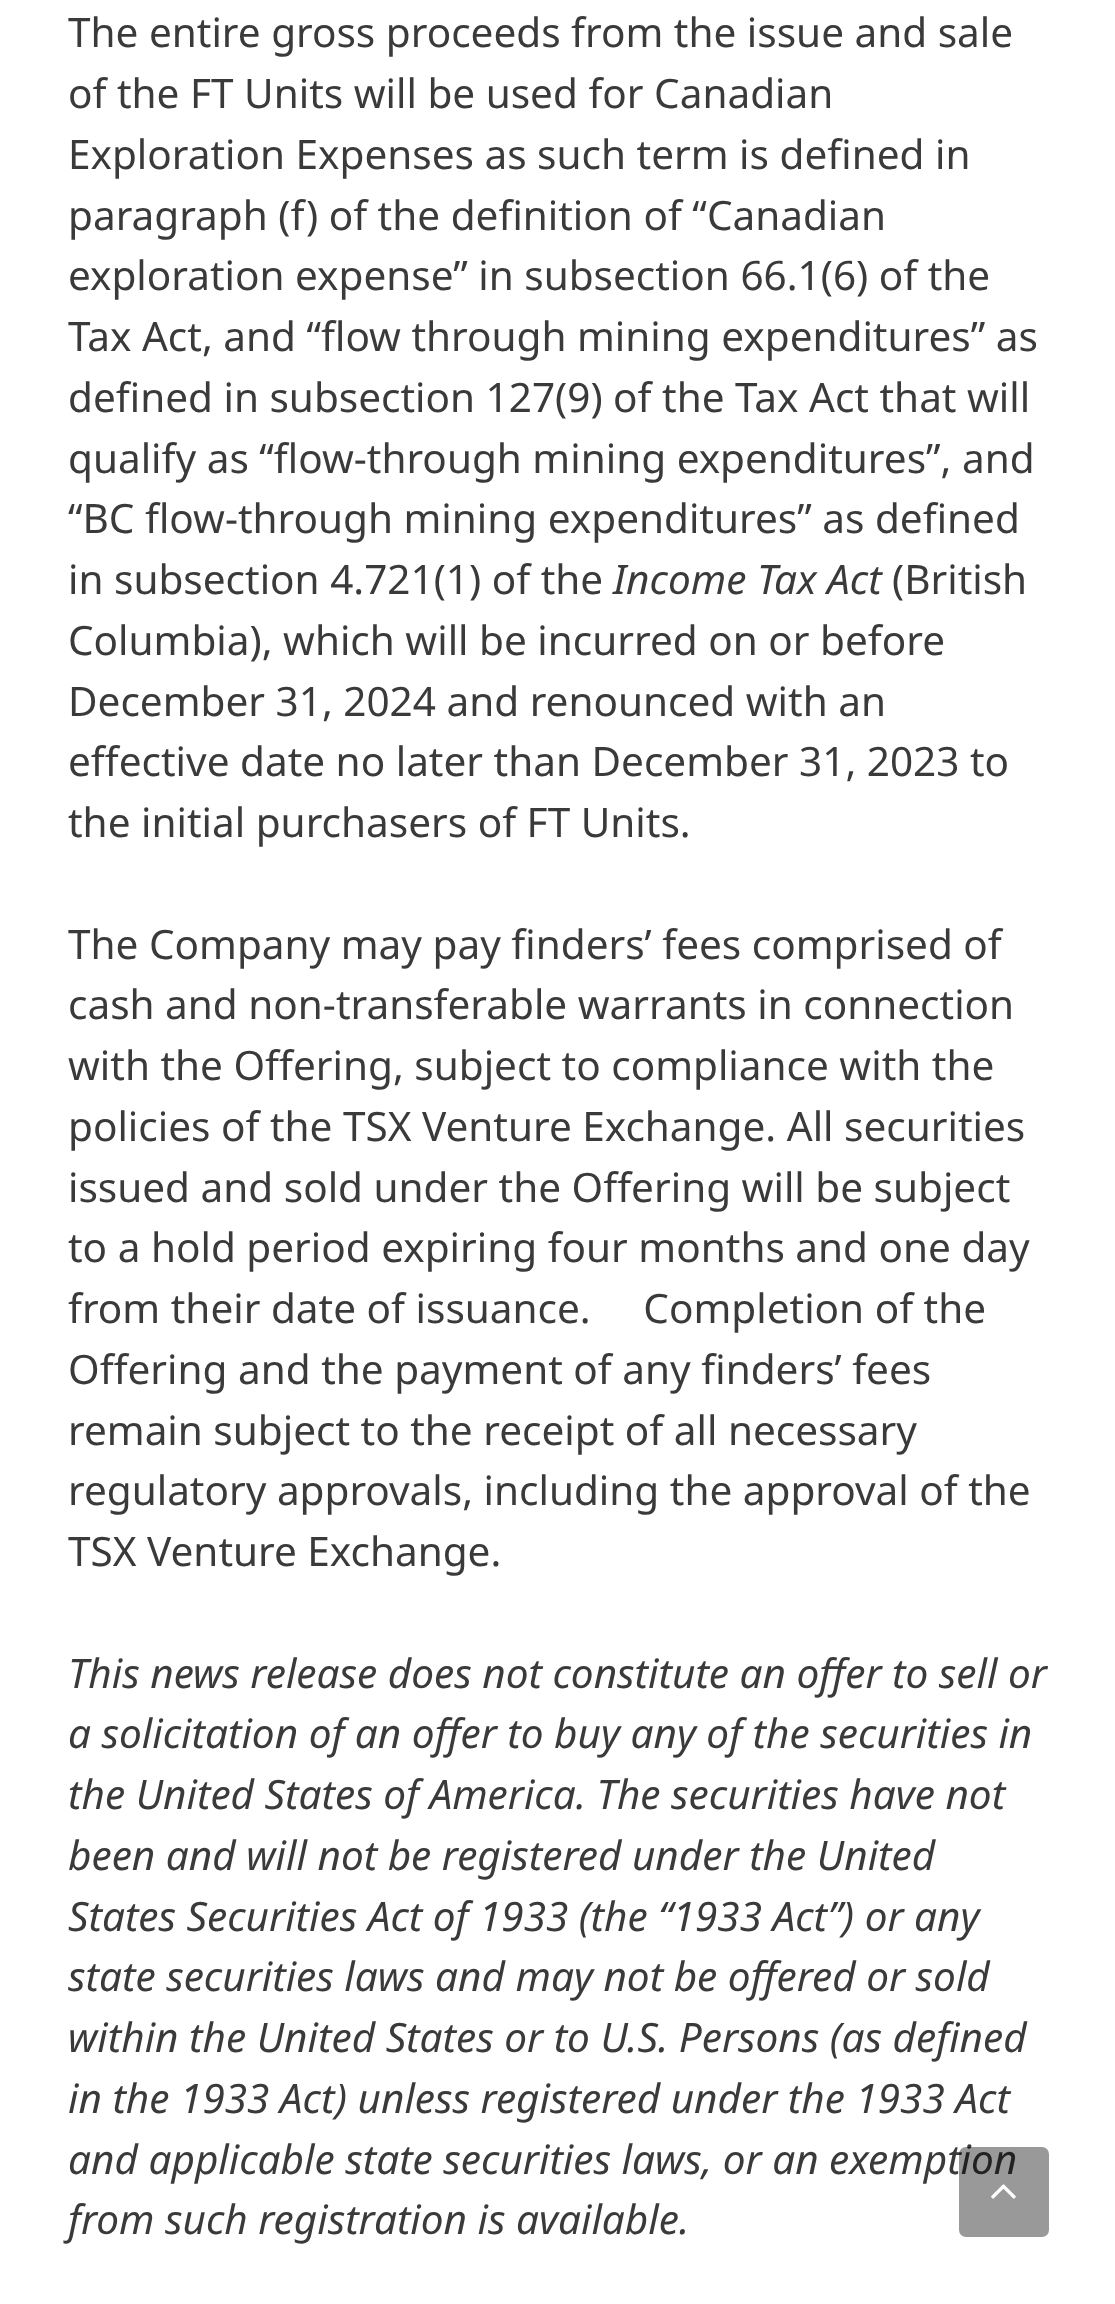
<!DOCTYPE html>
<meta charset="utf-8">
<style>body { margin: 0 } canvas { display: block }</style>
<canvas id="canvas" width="1115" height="2304"></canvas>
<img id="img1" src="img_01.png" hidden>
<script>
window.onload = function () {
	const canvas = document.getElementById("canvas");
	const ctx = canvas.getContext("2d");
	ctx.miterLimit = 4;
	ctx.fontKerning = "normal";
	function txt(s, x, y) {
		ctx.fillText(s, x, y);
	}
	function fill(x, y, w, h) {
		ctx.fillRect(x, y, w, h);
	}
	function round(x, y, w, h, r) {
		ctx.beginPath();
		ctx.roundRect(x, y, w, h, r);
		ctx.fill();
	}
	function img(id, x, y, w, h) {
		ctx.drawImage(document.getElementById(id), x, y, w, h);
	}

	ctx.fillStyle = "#FFFFFF";
	fill(0, 0, 1115, 2304);
	ctx.font = "40.5px Noto Sans";
	ctx.fillStyle = "#3A3A3A";
	txt("The entire gross proceeds from the issue and sale", 68, 47);
	txt("of the FT Units will be used for Canadian", 68, 108);
	txt("Exploration Expenses as such term is defined in", 68, 169);
	txt("paragraph (f) of the definition of “Canadian", 68, 230);
	txt("exploration expense” in subsection 66.1(6) of the", 68, 290);
	txt("Tax Act, and “flow through mining expenditures” as", 68, 351);
	txt("defined in subsection 127(9) of the Tax Act that will", 68, 412);
	txt("qualify as “flow-through mining expenditures”, and", 68, 473);
	txt("“BC flow-through mining expenditures” as defined", 68, 533);
	txt("in subsection 4.721(1) of the", 68, 594);
	ctx.font = "italic 40.5px Noto Sans";
	txt("Income Tax Act", 613, 594);
	ctx.font = "40.5px Noto Sans";
	txt("(British", 892, 594);
	txt("Columbia), which will be incurred on or before", 68, 655);
	txt("December 31, 2024 and renounced with an", 68, 716);
	txt("effective date no later than December 31, 2023 to", 68, 776);
	txt("the initial purchasers of FT Units.", 68, 837);
	txt("The Company may pay finders’ fees comprised of", 68, 959);
	txt("cash and non-transferable warrants in connection", 68, 1019);
	txt("with the Offering, subject to compliance with the", 68, 1080);
	txt("policies of the TSX Venture Exchange. All securities", 68, 1141);
	txt("issued and sold under the Offering will be subject", 68, 1202);
	txt("to a hold period expiring four months and one day", 68, 1262);
	txt("from their date of issuance.     Completion of the", 68, 1323);
	txt("Offering and the payment of any finders’ fees", 68, 1384);
	txt("remain subject to the receipt of all necessary", 68, 1445);
	txt("regulatory approvals, including the approval of the", 68, 1505);
	txt("TSX Venture Exchange.", 68, 1566);
	ctx.font = "italic 40.5px Noto Sans";
	txt("This news release does not constitute an offer to sell or", 68, 1688);
	txt("a solicitation of an offer to buy any of the securities in", 68, 1748);
	txt("the United States of America. The securities have not", 68, 1809);
	txt("been and will not be registered under the United", 68, 1870);
	txt("States Securities Act of 1933 (the “1933 Act”) or any", 68, 1931);
	txt("state securities laws and may not be offered or sold", 68, 1991);
	txt("within the United States or to U.S. Persons (as defined", 68, 2052);
	txt("in the 1933 Act) unless registered under the 1933 Act", 68, 2113);
	txt("and applicable state securities laws, or an exemption", 68, 2174);
	txt("from such registration is available.", 68, 2234);
	ctx.fillStyle = "rgba(0, 0, 0, 0.4)";
	round(959, 2147, 90, 90, 7);
	img("img1", 991, 2184, 25, 15);
};
</script>
